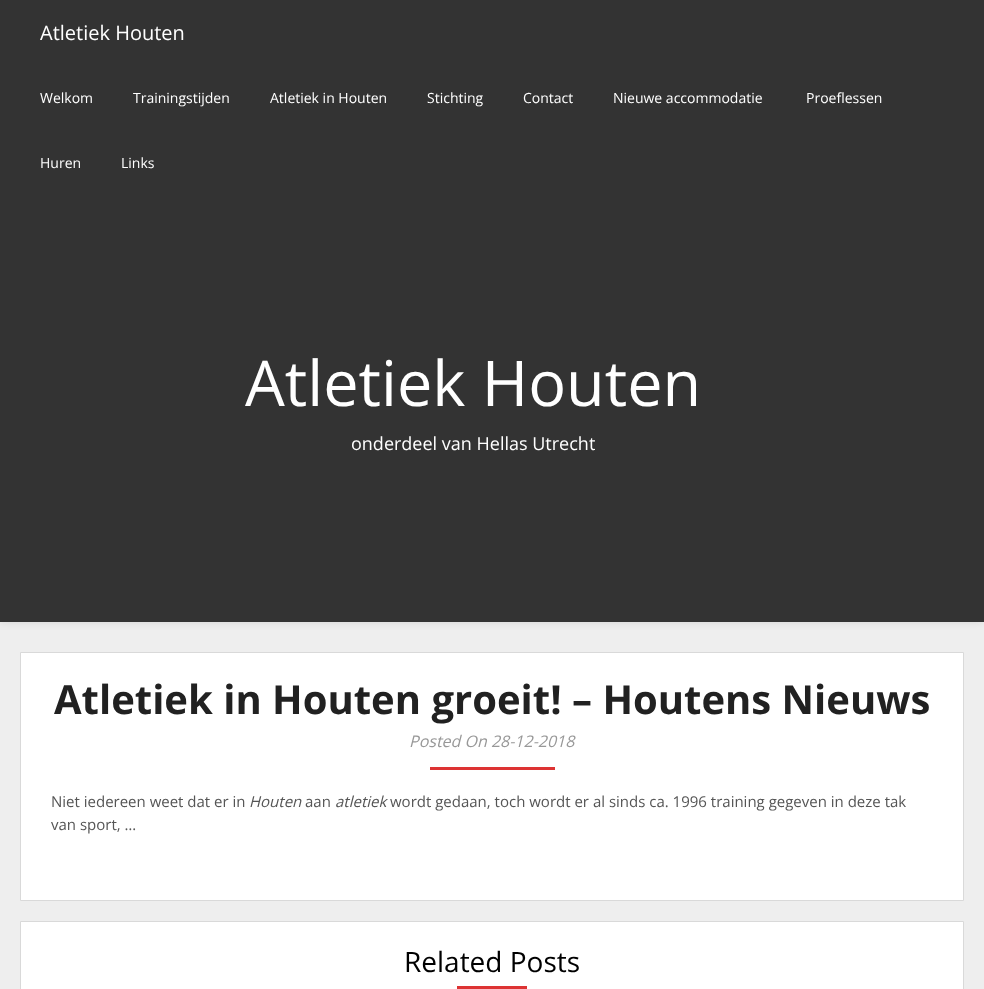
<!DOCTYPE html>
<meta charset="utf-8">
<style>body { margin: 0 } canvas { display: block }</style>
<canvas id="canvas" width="984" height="989"></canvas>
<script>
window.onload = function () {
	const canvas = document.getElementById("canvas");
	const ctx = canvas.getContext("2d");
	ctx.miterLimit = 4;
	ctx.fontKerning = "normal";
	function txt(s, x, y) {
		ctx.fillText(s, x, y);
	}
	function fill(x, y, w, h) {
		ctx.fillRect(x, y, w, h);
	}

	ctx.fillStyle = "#EEEEEE";
	fill(0, 0, 984, 989);
	ctx.fillStyle = "rgba(0, 0, 0, 0.1)";
	ctx.filter = "blur(4px)";
	ctx.beginPath();
	ctx.rect(0, 0, 984, 622);
	ctx.fill();
	ctx.filter = "none";
	ctx.fillStyle = "#333333";
	fill(0, 0, 984, 622);
	ctx.fillStyle = "#FFFFFF";
	ctx.beginPath();
	ctx.rect(20.5, 652.5, 943, 248);
	ctx.fill();
	ctx.strokeStyle = "#D9D9D9";
	ctx.stroke();
	ctx.fillStyle = "#DD3333";
	fill(430, 767, 125, 3);
	ctx.fillStyle = "#FFFFFF";
	ctx.beginPath();
	ctx.rect(20.5, 921.5, 943, 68);
	ctx.fill();
	ctx.stroke();
	ctx.fillStyle = "#DD3333";
	fill(457, 986, 70, 3);
	ctx.font = "20px Open Sans";
	ctx.fillStyle = "#FFFFFF";
	txt("Atletiek Houten", 40, 40);
	ctx.font = "14px Open Sans";
	txt("Welkom", 40, 103);
	txt("Trainingstijden", 133, 103);
	txt("Atletiek in Houten", 270, 103);
	txt("Stichting", 427, 103);
	txt("Contact", 523, 103);
	txt("Nieuwe accommodatie", 613, 103);
	txt("Proeflessen", 806, 103);
	txt("Huren", 40, 168);
	txt("Links", 121, 168);
	ctx.font = "63px Open Sans";
	txt("Atletiek Houten", 245, 406);
	ctx.font = "18px Open Sans";
	txt("onderdeel van Hellas Utrecht", 351, 450);
	ctx.font = "bold 40px Open Sans";
	ctx.fillStyle = "#212121";
	txt("Atletiek in Houten groeit! – Houtens Nieuws", 54, 714);
	ctx.font = "italic 16px Open Sans";
	ctx.fillStyle = "#989898";
	txt("Posted On 28-12-2018", 409, 747);
	ctx.font = "15px Open Sans";
	ctx.fillStyle = "#555555";
	txt("Niet iedereen weet dat er in", 51, 807);
	ctx.font = "italic 15px Open Sans";
	txt("Houten", 249, 807);
	ctx.font = "15px Open Sans";
	txt("aan", 305, 807);
	ctx.font = "italic 15px Open Sans";
	txt("atletiek", 335, 807);
	ctx.font = "15px Open Sans";
	txt("wordt gedaan, toch wordt er al sinds ca. 1996 training gegeven in deze tak", 390, 807);
	txt("van sport, …", 51, 830);
	ctx.font = "28px Open Sans";
	ctx.fillStyle = "#000000";
	txt("Related Posts", 404, 972);
};
</script>
